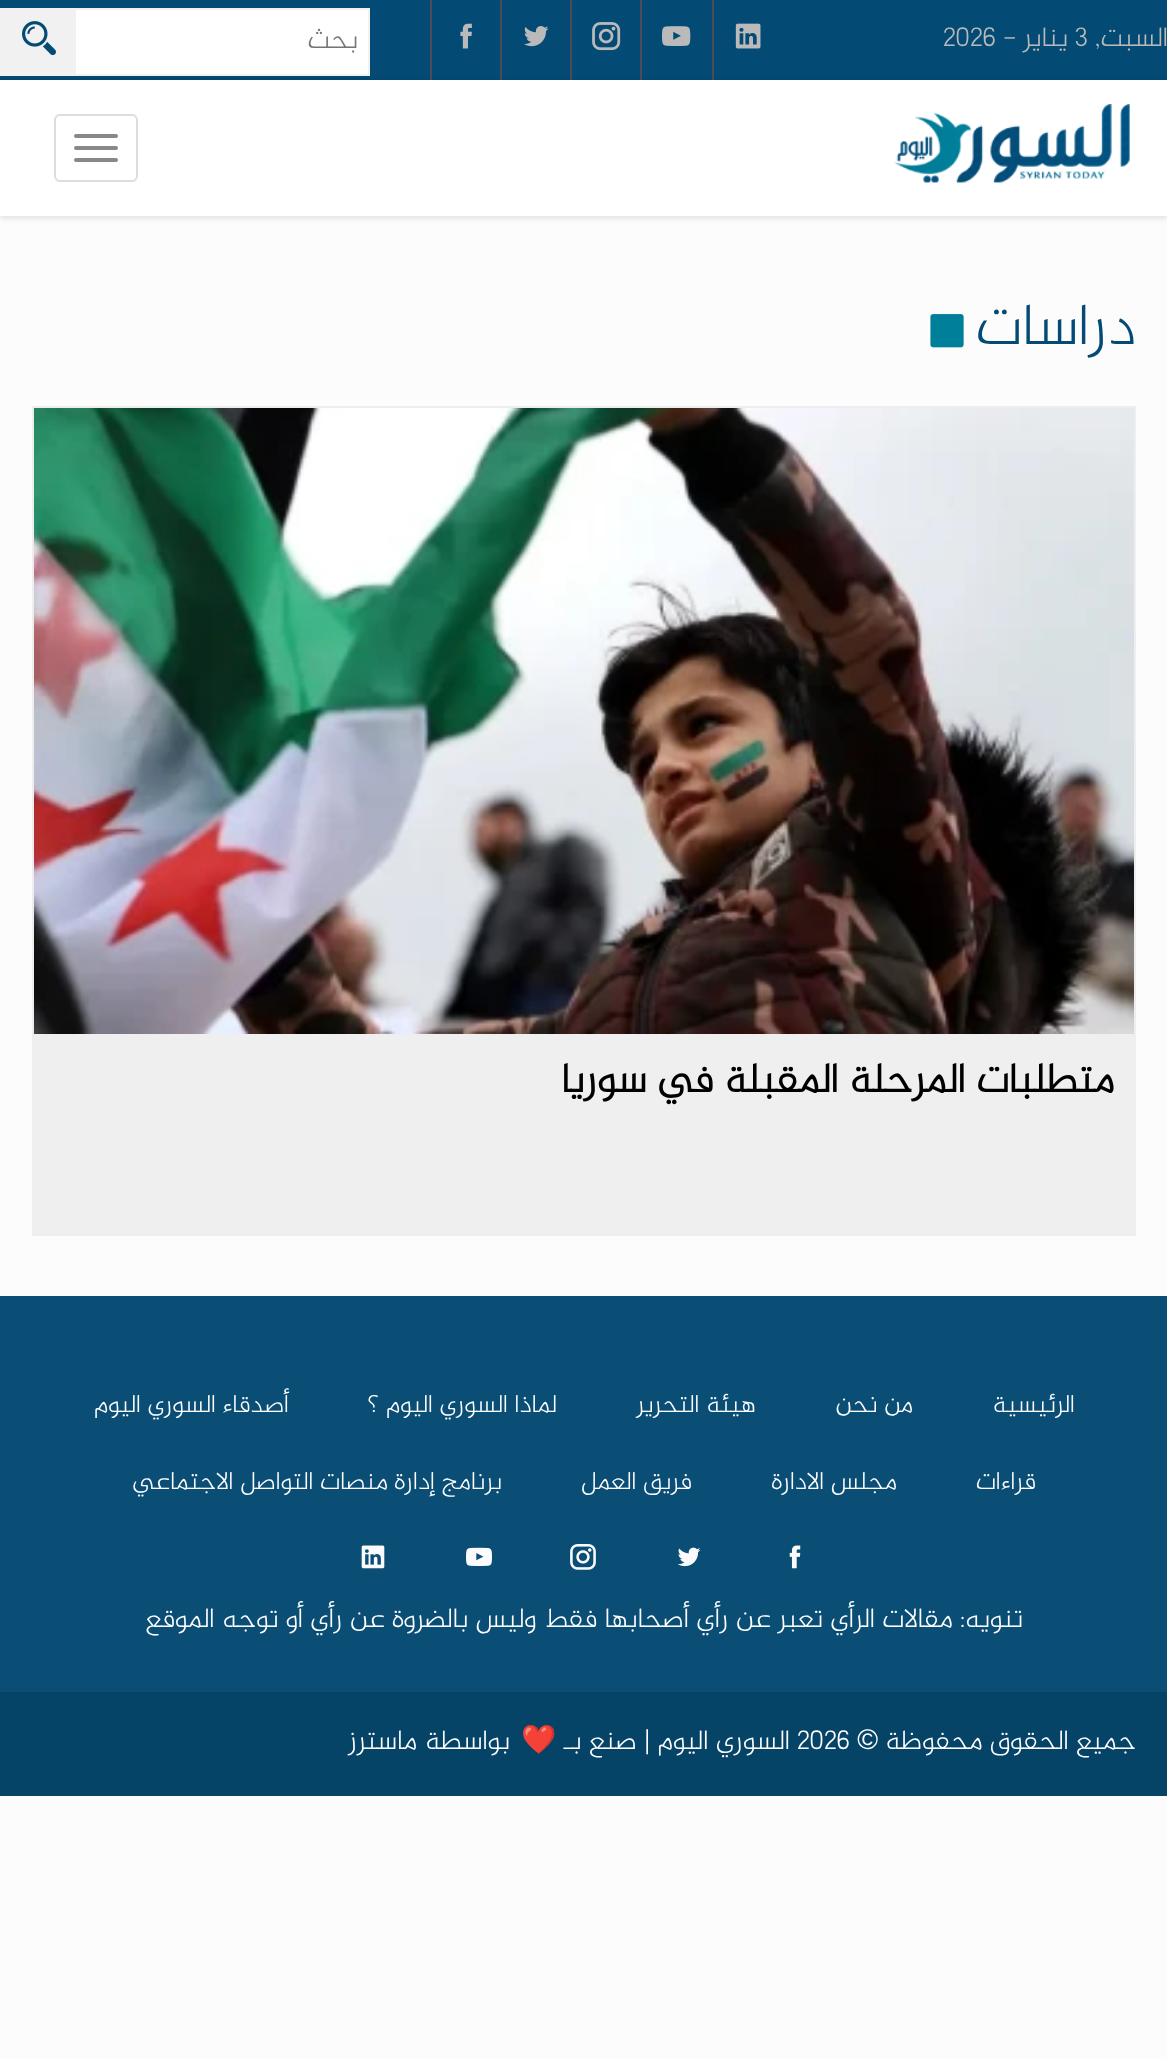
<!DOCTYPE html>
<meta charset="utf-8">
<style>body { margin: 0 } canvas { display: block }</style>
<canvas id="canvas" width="1167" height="2059"></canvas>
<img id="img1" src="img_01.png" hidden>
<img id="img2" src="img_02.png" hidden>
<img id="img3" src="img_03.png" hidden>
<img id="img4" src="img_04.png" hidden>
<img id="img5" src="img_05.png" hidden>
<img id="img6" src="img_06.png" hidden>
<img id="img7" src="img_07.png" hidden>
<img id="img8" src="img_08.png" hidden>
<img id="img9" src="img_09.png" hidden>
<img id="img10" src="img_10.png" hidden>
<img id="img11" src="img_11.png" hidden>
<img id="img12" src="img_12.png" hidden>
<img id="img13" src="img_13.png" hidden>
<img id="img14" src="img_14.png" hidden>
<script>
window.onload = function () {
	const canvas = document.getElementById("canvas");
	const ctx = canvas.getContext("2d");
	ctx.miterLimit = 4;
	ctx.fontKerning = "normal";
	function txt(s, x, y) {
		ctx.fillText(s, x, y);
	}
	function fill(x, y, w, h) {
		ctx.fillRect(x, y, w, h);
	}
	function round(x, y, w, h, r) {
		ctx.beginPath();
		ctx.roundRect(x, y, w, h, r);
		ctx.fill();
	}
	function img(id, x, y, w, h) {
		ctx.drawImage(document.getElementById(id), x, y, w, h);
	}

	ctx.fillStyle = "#FCFCFC";
	fill(0, 0, 1167, 2059);
	ctx.fillStyle = "#034B74";
	fill(0, 0, 1167, 80);
	ctx.fillStyle = "#4C4C59";
	fill(712, 0, 2, 80);
	img("img1", 735, 23, 26, 26);
	fill(640, 0, 2, 80);
	img("img2", 662, 26, 29, 20);
	fill(570, 0, 2, 80);
	img("img3", 592, 22, 29, 29);
	fill(500, 0, 2, 80);
	img("img4", 524, 26, 25, 21);
	fill(430, 0, 2, 80);
	img("img5", 460, 23, 12, 26);
	ctx.fillStyle = "#FFFFFF";
	ctx.beginPath();
	ctx.rect(75, 9, 294, 66);
	ctx.fill();
	ctx.strokeStyle = "#F1F1F1";
	ctx.lineWidth = 2;
	ctx.stroke();
	ctx.fillStyle = "#F1F1F1";
	fill(0, 8, 74, 68);
	img("img6", 22, 21, 34, 35);
	ctx.fillStyle = "rgba(0, 0, 0, 0.12)";
	ctx.filter = "blur(3px)";
	ctx.beginPath();
	ctx.rect(0, 82, 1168, 136);
	ctx.fill();
	ctx.filter = "none";
	ctx.fillStyle = "#FFFFFF";
	fill(0, 80, 1167, 136);
	img("img7", 894, 104, 236, 79);
	ctx.beginPath();
	ctx.roundRect(55, 115, 82, 66, 5);
	ctx.strokeStyle = "#DDDDDD";
	ctx.stroke();
	ctx.fillStyle = "#888888";
	round(74, 134, 44, 4, 2);
	round(74, 146, 44, 4, 2);
	round(74, 158, 44, 4, 2);
	img("img8", 930, 314, 34, 34);
	ctx.strokeStyle = "#EEEEEE";
	ctx.strokeRect(33, 407, 1102, 828);
	img("img9", 34, 408, 1100, 626);
	ctx.fillStyle = "#EFEFEF";
	fill(34, 1034, 1100, 200);
	ctx.fillStyle = "#0A4E75";
	fill(0, 1296, 1167, 396);
	img("img10", 789, 1545, 12, 24);
	img("img11", 677, 1547, 24, 20);
	img("img12", 570, 1544, 26, 26);
	img("img13", 466, 1547, 26, 19);
	img("img14", 361, 1545, 24, 24);
	ctx.fillStyle = "#054367";
	fill(0, 1692, 1167, 104);
	ctx.direction = "rtl";
	ctx.font = "300 28.3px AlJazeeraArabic";
	ctx.fillStyle = "#BBBABB";
	txt("السبت,", 1168, 46);
	ctx.direction = "ltr";
	txt("3", 1075, 46);
	ctx.direction = "rtl";
	txt("يناير -", 1068, 46);
	ctx.direction = "ltr";
	txt("2026", 943, 46);
	ctx.direction = "rtl";
	ctx.fillStyle = "#757575";
	txt("بحث", 358, 48);
	ctx.font = "300 60px AlJazeeraArabic";
	ctx.fillStyle = "#034B74";
	txt("دراسات", 1136, 344);
	ctx.font = "bold 42px AlJazeeraArabic";
	ctx.fillStyle = "#000000";
	txt("متطلبات المرحلة المقبلة في سوريا", 1114, 1092);
	ctx.font = "300 26px AlJazeeraArabic";
	ctx.fillStyle = "#FFFFFF";
	txt("الرئيسية", 1075, 1412);
	txt("من نحن", 913, 1412);
	txt("هيئة التحرير", 756, 1412);
	txt("لماذا السوري اليوم ؟", 557, 1412);
	txt("أصدقاء السوري اليوم", 289, 1412);
	txt("قراءات", 1036, 1489);
	txt("مجلس الادارة", 897, 1489);
	txt("فريق العمل", 692, 1489);
	txt("برنامج إدارة منصات التواصل الاجتماعي", 502, 1489);
	ctx.font = "300 28.3px AlJazeeraArabic";
	txt("تنويه: مقالات الرأي تعبر عن رأي أصحابها فقط وليس بالضروة عن رأي أو توجه الموقع", 1023, 1627);
	txt("جميع الحقوق محفوظة", 1136, 1749);
	ctx.font = "28.3px Liberation Sans";
	txt("©", 878, 1749);
	ctx.direction = "ltr";
	ctx.font = "300 28.3px AlJazeeraArabic";
	txt("2026", 797, 1749);
	ctx.direction = "rtl";
	txt("السوري اليوم | صنع بـ", 790, 1749);
	ctx.direction = "ltr";
	ctx.font = "28.3px Noto Color Emoji";
	txt("❤️", 521, 1749);
	ctx.direction = "rtl";
	ctx.font = "300 28.3px AlJazeeraArabic";
	txt("بواسطة", 510, 1749);
	txt("ماسترز", 417, 1749);
};
</script>
